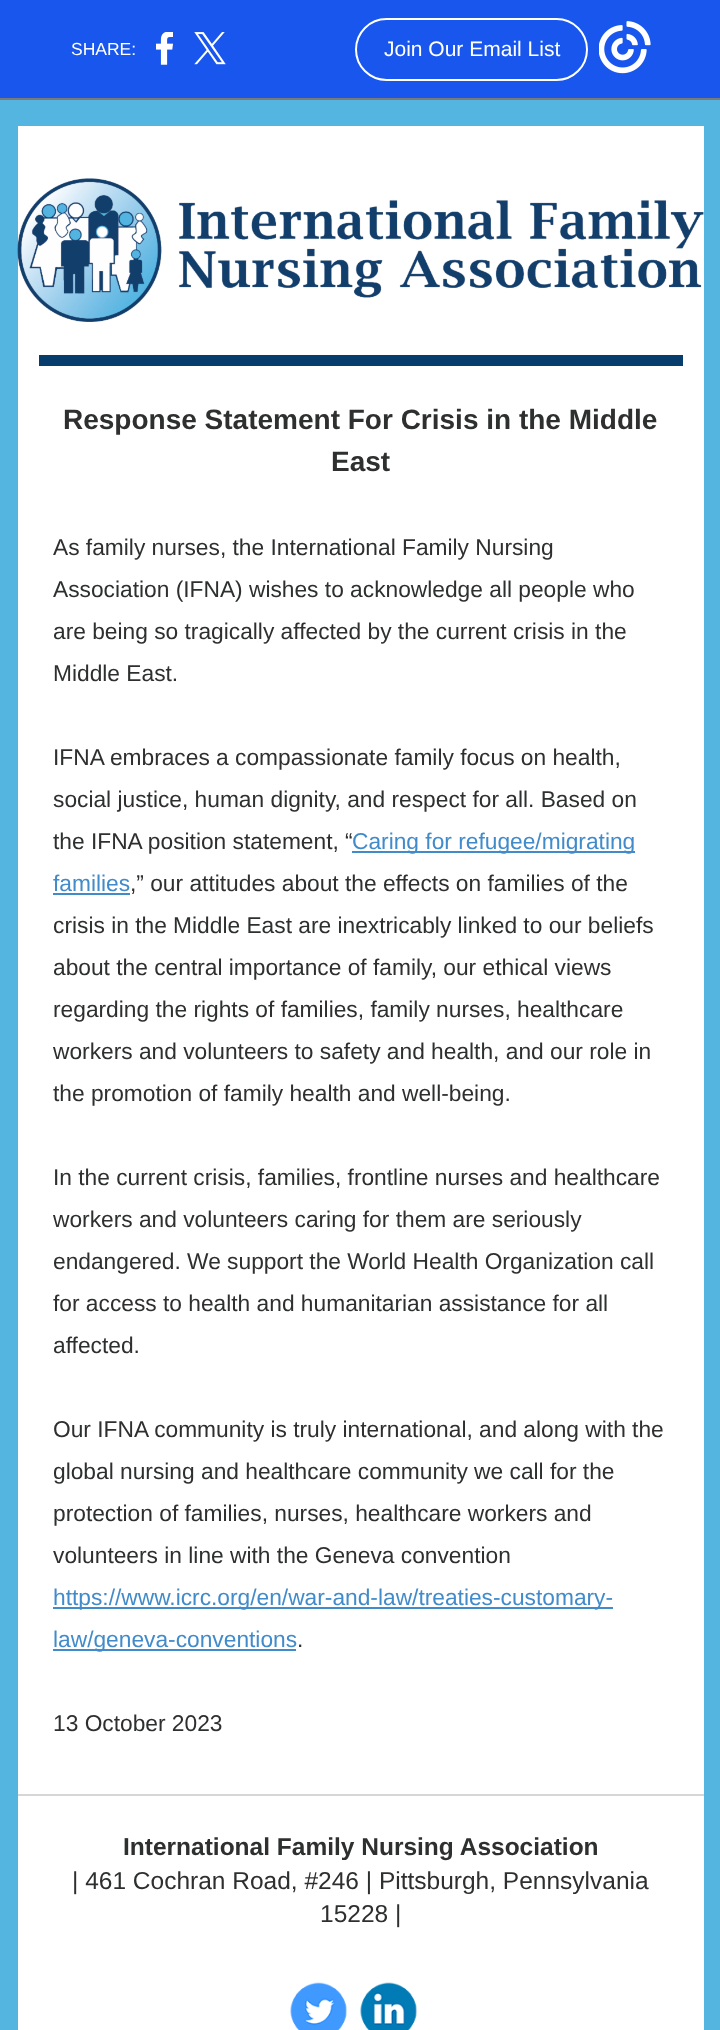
<!DOCTYPE html>
<meta charset="utf-8">
<style>body { margin: 0 } canvas { display: block }</style>
<canvas id="canvas" width="720" height="2030"></canvas>
<img id="img1" src="img_01.png" hidden>
<img id="img2" src="img_02.png" hidden>
<img id="img3" src="img_03.png" hidden>
<img id="img4" src="img_04.png" hidden>
<img id="img5" src="img_05.png" hidden>
<img id="img6" src="img_06.png" hidden>
<script>
window.onload = function () {
	const canvas = document.getElementById("canvas");
	const ctx = canvas.getContext("2d");
	ctx.miterLimit = 4;
	ctx.fontKerning = "normal";
	function txt(s, x, y) {
		ctx.fillText(s, x, y);
	}
	function fill(x, y, w, h) {
		ctx.fillRect(x, y, w, h);
	}
	function img(id, x, y, w, h) {
		ctx.drawImage(document.getElementById(id), x, y, w, h);
	}

	ctx.fillStyle = "#1856ED";
	fill(0, 0, 720, 2030);
	ctx.fillStyle = "#7A7A7A";
	fill(0, 98, 720, 2);
	img("img1", 156, 32, 17, 33);
	img("img2", 194, 32, 32, 33);
	ctx.beginPath();
	ctx.roundRect(356, 19, 231, 61, 30.5);
	ctx.strokeStyle = "#FFFFFF";
	ctx.lineWidth = 2;
	ctx.stroke();
	img("img3", 599, 21, 52, 53);
	ctx.fillStyle = "#53B5E0";
	fill(0, 100, 720, 1930);
	ctx.fillStyle = "#FFFFFF";
	fill(18, 126, 686, 1904);
	img("img4", 17, 178, 687, 144);
	ctx.fillStyle = "#063D6C";
	fill(39, 355, 644, 11);
	ctx.fillStyle = "#428BCA";
	fill(352, 851, 283, 2);
	fill(53, 893, 77, 2);
	fill(53, 1607, 560, 2);
	fill(53, 1649, 243, 2);
	ctx.fillStyle = "#D6D6D6";
	fill(18, 1794, 686, 2);
	img("img5", 290, 1982, 57, 48);
	img("img6", 360, 1982, 57, 48);
	ctx.font = "17.5px Liberation Sans";
	ctx.fillStyle = "#FFFFFF";
	txt("SHARE:", 71, 55);
	ctx.font = "21px Liberation Sans";
	txt("Join Our Email List", 384, 56);
	ctx.font = "bold 28px Liberation Sans";
	ctx.fillStyle = "#2E2F2F";
	txt("Response Statement For Crisis in the Middle", 63, 429);
	txt("East", 331, 471);
	ctx.font = "22.75px Liberation Sans";
	txt("As family nurses, the International Family Nursing", 53, 555);
	txt("Association (IFNA) wishes to acknowledge all people who", 53, 597);
	txt("are being so tragically affected by the current crisis in the", 53, 639);
	txt("Middle East.", 53, 681);
	txt("IFNA embraces a compassionate family focus on health,", 53, 765);
	txt("social justice, human dignity, and respect for all. Based on", 53, 807);
	txt("the IFNA position statement, “", 53, 849);
	ctx.fillStyle = "#428BCA";
	txt("Caring for refugee/migrating", 352, 849);
	txt("families", 53, 891);
	ctx.fillStyle = "#2E2F2F";
	txt(",” our attitudes about the effects on families of the", 130, 891);
	txt("crisis in the Middle East are inextricably linked to our beliefs", 53, 933);
	txt("about the central importance of family, our ethical views", 53, 975);
	txt("regarding the rights of families, family nurses, healthcare", 53, 1017);
	txt("workers and volunteers to safety and health, and our role in", 53, 1059);
	txt("the promotion of family health and well-being.", 53, 1101);
	txt("In the current crisis, families, frontline nurses and healthcare", 53, 1185);
	txt("workers and volunteers caring for them are seriously", 53, 1227);
	txt("endangered. We support the World Health Organization call", 53, 1269);
	txt("for access to health and humanitarian assistance for all", 53, 1311);
	txt("affected.", 53, 1353);
	txt("Our IFNA community is truly international, and along with the", 53, 1437);
	txt("global nursing and healthcare community we call for the", 53, 1479);
	txt("protection of families, nurses, healthcare workers and", 53, 1521);
	txt("volunteers in line with the Geneva convention", 53, 1563);
	ctx.fillStyle = "#428BCA";
	txt("https://www.icrc.org/en/war-and-law/treaties-customary-", 53, 1605);
	txt("law/geneva-conventions", 53, 1647);
	ctx.fillStyle = "#2E2F2F";
	txt(".", 297, 1647);
	txt("13 October 2023", 53, 1731);
	ctx.font = "bold 24.5px Liberation Sans";
	txt("International Family Nursing Association", 123, 1855);
	ctx.font = "24.5px Liberation Sans";
	txt("| 461 Cochran Road, #246 | Pittsburgh, Pennsylvania", 72, 1889);
	txt("15228 |", 320, 1922);
};
</script>
